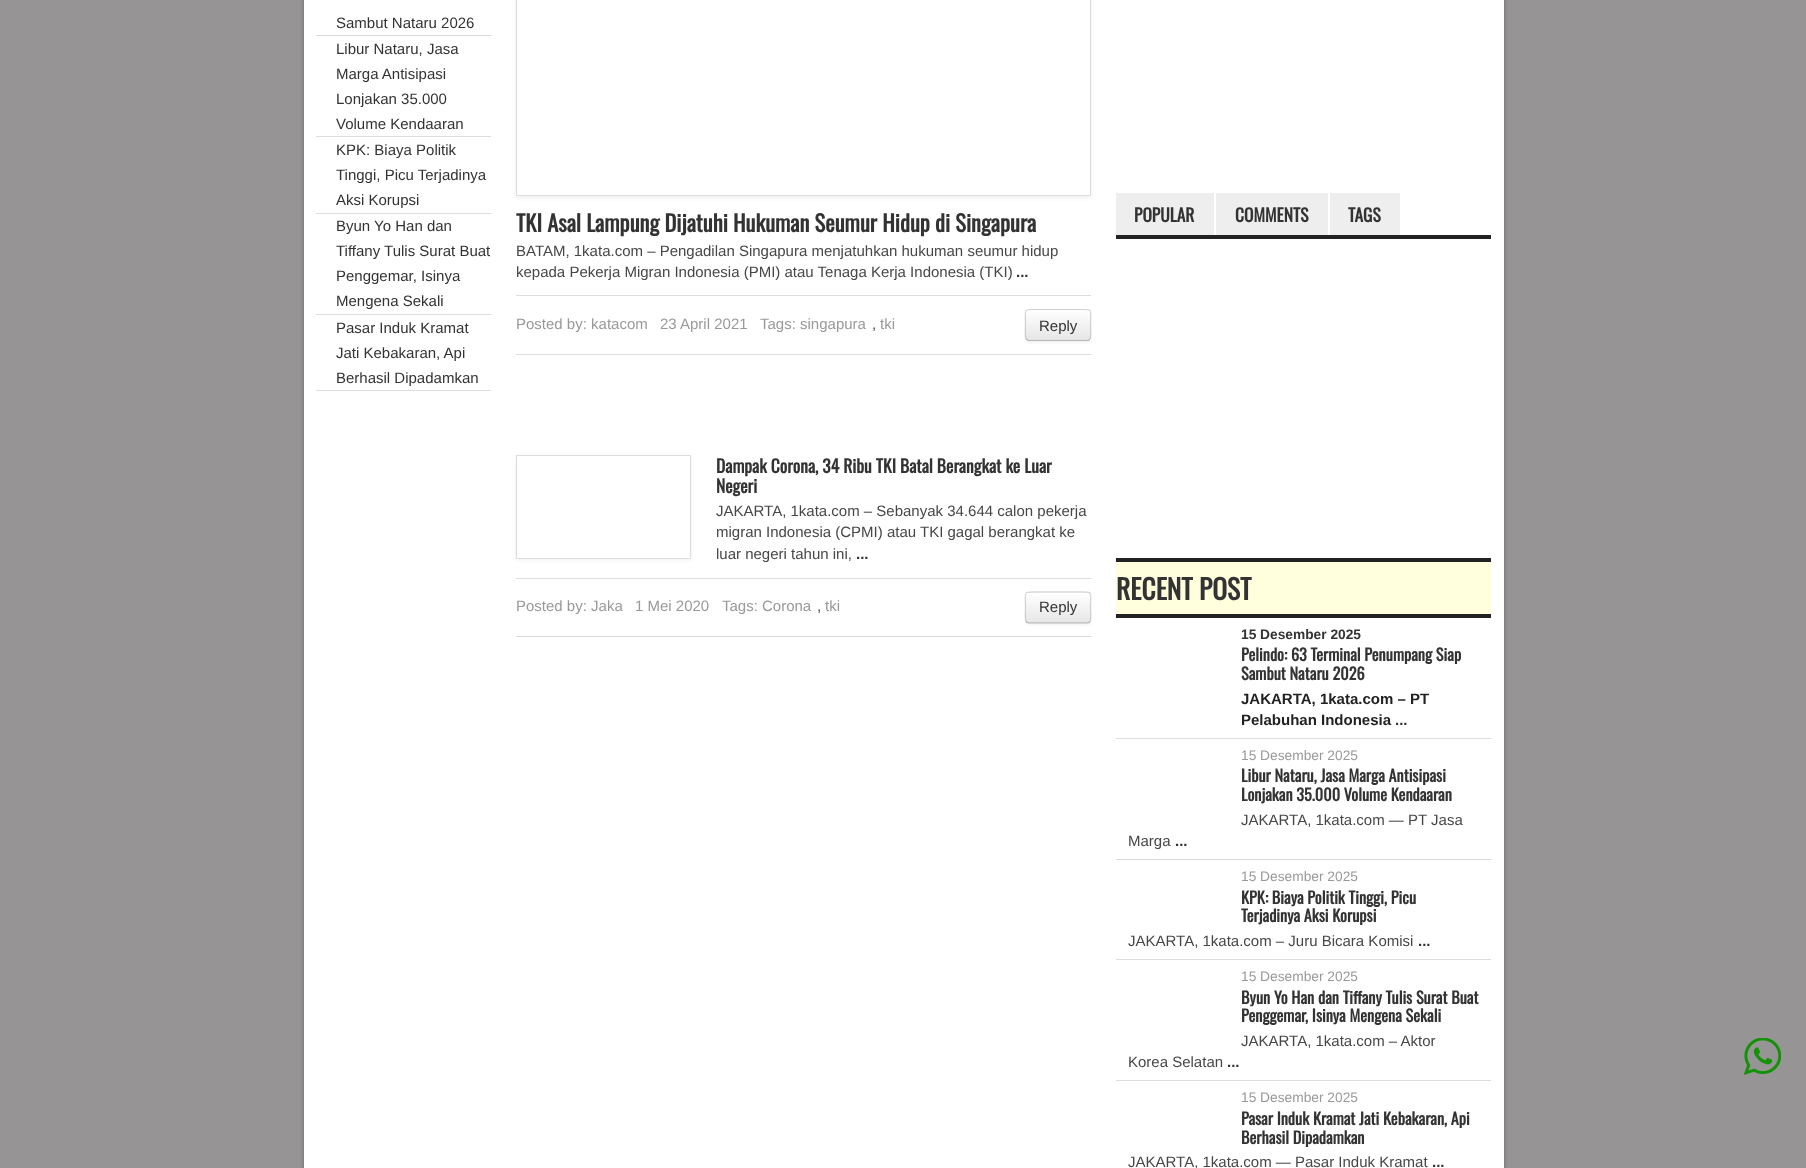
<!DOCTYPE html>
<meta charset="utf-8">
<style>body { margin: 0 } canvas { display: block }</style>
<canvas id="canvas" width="1806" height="1168"></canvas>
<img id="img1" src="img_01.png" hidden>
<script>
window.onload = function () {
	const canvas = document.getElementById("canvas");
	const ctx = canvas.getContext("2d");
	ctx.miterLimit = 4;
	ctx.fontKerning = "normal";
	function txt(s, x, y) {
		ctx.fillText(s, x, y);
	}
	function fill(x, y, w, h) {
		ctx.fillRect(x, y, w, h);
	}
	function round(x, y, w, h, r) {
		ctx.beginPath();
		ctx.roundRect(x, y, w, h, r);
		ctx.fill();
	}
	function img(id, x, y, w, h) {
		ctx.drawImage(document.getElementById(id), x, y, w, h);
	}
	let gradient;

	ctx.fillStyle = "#969494";
	fill(0, 0, 1806, 1168);
	ctx.fillStyle = "rgba(0, 0, 0, 0.3)";
	ctx.filter = "blur(2px)";
	ctx.beginPath();
	ctx.rect(304, -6, 1200, 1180);
	ctx.fill();
	ctx.filter = "none";
	ctx.fillStyle = "#FFFFFF";
	fill(304, 0, 1200, 1168);
	ctx.fillStyle = "#DDDDDD";
	fill(316, 35, 175, 1);
	fill(316, 136, 175, 1);
	fill(316, 213, 175, 1);
	fill(316, 314, 175, 1);
	fill(316, 390, 175, 1);
	ctx.fillStyle = "rgba(0, 0, 0, 0.06)";
	ctx.filter = "blur(2px)";
	ctx.beginPath();
	ctx.rect(516, -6, 575, 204);
	ctx.fill();
	ctx.filter = "none";
	ctx.fillStyle = "#FFFFFF";
	ctx.beginPath();
	ctx.rect(516.5, -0.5, 574, 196);
	ctx.fill();
	ctx.strokeStyle = "#DDDDDD";
	ctx.stroke();
	ctx.fillStyle = "#DDDDDD";
	fill(516, 295, 575, 1);
	fill(516, 354, 575, 1);
	ctx.fillStyle = "rgba(0, 0, 0, 0.05)";
	ctx.filter = "blur(1px)";
	ctx.beginPath();
	ctx.roundRect(1025, 310, 66, 33, 4);
	ctx.fill();
	ctx.filter = "none";
	ctx.fillStyle = "#F5F5F5";
	round(1025, 309, 66, 32, 4);
	ctx.save();
	ctx.beginPath();
	ctx.roundRect(1025, 309, 66, 32, 4);
	ctx.clip();
	gradient = ctx.createLinearGradient(1058, 310, 1058, 340);
	gradient.addColorStop(0, "#FFFFFF");
	gradient.addColorStop(1, "#E6E6E6");
	ctx.fillStyle = gradient;
	fill(1025, 310, 66, 30);
	ctx.restore();
	ctx.beginPath();
	ctx.moveTo(1089.5, 339.5);
	ctx.lineTo(1088, 340.5);
	ctx.lineTo(1028.5, 340.5);
	ctx.lineTo(1026.5, 339.5);
	ctx.strokeStyle = "rgba(0, 0, 0, 0.25)";
	ctx.lineWidth = 1.2;
	ctx.stroke();
	ctx.beginPath();
	ctx.moveTo(1026.5, 339.5);
	ctx.bezierCurveTo(1024.5, 337.5, 1025.5, 328, 1025.5, 325);
	ctx.bezierCurveTo(1025.5, 308, 1022.5, 309.5, 1038.5, 309.5);
	ctx.lineTo(1077.5, 309.5);
	ctx.bezierCurveTo(1094, 309.5, 1090.5, 308, 1090.5, 325);
	ctx.bezierCurveTo(1090.5, 328, 1092, 337.5, 1089.5, 339.5);
	ctx.strokeStyle = "rgba(0, 0, 0, 0.15)";
	ctx.stroke();
	ctx.fillStyle = "rgba(0, 0, 0, 0.06)";
	ctx.filter = "blur(2px)";
	ctx.beginPath();
	ctx.rect(516, 456, 175, 104);
	ctx.fill();
	ctx.filter = "none";
	ctx.fillStyle = "#FFFFFF";
	ctx.beginPath();
	ctx.rect(516.5, 455.5, 174, 103);
	ctx.fill();
	ctx.strokeStyle = "#DDDDDD";
	ctx.lineWidth = 1;
	ctx.stroke();
	ctx.fillStyle = "#DDDDDD";
	fill(516, 578, 575, 1);
	fill(516, 636, 575, 1);
	ctx.fillStyle = "rgba(0, 0, 0, 0.05)";
	ctx.filter = "blur(1px)";
	ctx.beginPath();
	ctx.roundRect(1025, 593, 66, 32, 4);
	ctx.fill();
	ctx.filter = "none";
	ctx.fillStyle = "#F5F5F5";
	round(1025, 591, 66, 33, 4);
	ctx.save();
	ctx.beginPath();
	ctx.roundRect(1025, 591, 66, 33, 4);
	ctx.clip();
	gradient = ctx.createLinearGradient(1058, 593, 1058, 623);
	gradient.addColorStop(0, "#FFFFFF");
	gradient.addColorStop(1, "#E6E6E6");
	ctx.fillStyle = gradient;
	fill(1025, 593, 66, 30);
	ctx.restore();
	ctx.beginPath();
	ctx.moveTo(1089.5, 622);
	ctx.lineTo(1088, 623);
	ctx.lineTo(1028.5, 623);
	ctx.lineTo(1026.5, 622);
	ctx.strokeStyle = "rgba(0, 0, 0, 0.25)";
	ctx.lineWidth = 1.2;
	ctx.stroke();
	ctx.beginPath();
	ctx.moveTo(1026.5, 622);
	ctx.bezierCurveTo(1024.5, 620, 1025.5, 610.5, 1025.5, 607.5);
	ctx.bezierCurveTo(1025.5, 590.5, 1022.5, 592, 1038.5, 592);
	ctx.lineTo(1077.5, 592);
	ctx.bezierCurveTo(1094, 592, 1090.5, 590.5, 1090.5, 607.5);
	ctx.bezierCurveTo(1090.5, 610.5, 1092, 620, 1089.5, 622);
	ctx.strokeStyle = "rgba(0, 0, 0, 0.15)";
	ctx.stroke();
	ctx.fillStyle = "#222222";
	fill(1116, 235, 375, 4);
	ctx.fillStyle = "#EEEEEE";
	fill(1116, 193, 98, 42);
	fill(1216, 193, 112, 42);
	fill(1330, 193, 70, 42);
	ctx.fillStyle = "#FFFFDE";
	fill(1116, 562, 375, 52);
	ctx.fillStyle = "#222222";
	fill(1116, 558, 375, 4);
	fill(1116, 614, 375, 4);
	ctx.fillStyle = "#DDDDDD";
	fill(1116, 738, 375, 1);
	fill(1116, 859, 375, 1);
	fill(1116, 959, 375, 1);
	fill(1116, 1080, 375, 1);
	img("img1", 1744, 1038, 37, 37);
	ctx.font = "15px Liberation Sans";
	ctx.fillStyle = "#333333";
	txt("Sambut Nataru 2026", 336, 28);
	txt("Libur Nataru, Jasa", 336, 54);
	txt("Marga Antisipasi", 336, 79);
	txt("Lonjakan 35.000", 336, 104);
	txt("Volume Kendaaran", 336, 129);
	txt("KPK: Biaya Politik", 336, 155);
	txt("Tinggi, Picu Terjadinya", 336, 180);
	txt("Aksi Korupsi", 336, 205);
	txt("Byun Yo Han dan", 336, 231);
	txt("Tiffany Tulis Surat Buat", 336, 256);
	txt("Penggemar, Isinya", 336, 281);
	txt("Mengena Sekali", 336, 306);
	txt("Pasar Induk Kramat", 336, 333);
	txt("Jati Kebakaran, Api", 336, 358);
	txt("Berhasil Dipadamkan", 336, 383);
	ctx.font = "bold 22.5px Oswald";
	txt("TKI Asal Lampung Dijatuhi Hukuman Seumur Hidup di Singapura", 516, 232);
	ctx.font = "15px Liberation Sans";
	ctx.fillStyle = "#474747";
	txt("BATAM, 1kata.com – Pengadilan Singapura menjatuhkan hukuman seumur hidup", 516, 256);
	txt("kepada Pekerja Migran Indonesia (PMI) atau Tenaga Kerja Indonesia (TKI)", 516, 277);
	ctx.font = "bold 15px Liberation Sans";
	ctx.fillStyle = "#333333";
	txt("...", 1016, 277);
	ctx.font = "15px Liberation Sans";
	ctx.fillStyle = "#999999";
	txt("Posted by: katacom", 516, 329);
	txt("23 April 2021", 660, 329);
	txt("Tags: singapura", 760, 329);
	ctx.fillStyle = "#474747";
	txt(",", 872, 329);
	ctx.fillStyle = "#999999";
	txt("tki", 880, 329);
	ctx.fillStyle = "#333333";
	txt("Reply", 1039, 331);
	ctx.font = "bold 17.5px Oswald";
	txt("Dampak Corona, 34 Ribu TKI Batal Berangkat ke Luar", 716, 473);
	txt("Negeri", 716, 493);
	ctx.font = "15px Liberation Sans";
	ctx.fillStyle = "#474747";
	txt("JAKARTA, 1kata.com – Sebanyak 34.644 calon pekerja", 716, 516);
	txt("migran Indonesia (CPMI) atau TKI gagal berangkat ke", 716, 537);
	txt("luar negeri tahun ini,", 716, 559);
	ctx.font = "bold 15px Liberation Sans";
	ctx.fillStyle = "#333333";
	txt("...", 856, 559);
	ctx.font = "15px Liberation Sans";
	ctx.fillStyle = "#999999";
	txt("Posted by: Jaka", 516, 611);
	txt("1 Mei 2020", 635, 611);
	txt("Tags: Corona", 722, 611);
	ctx.fillStyle = "#474747";
	txt(",", 817, 611);
	ctx.fillStyle = "#999999";
	txt("tki", 825, 611);
	ctx.fillStyle = "#333333";
	txt("Reply", 1039, 612);
	ctx.font = "bold 17.5px Oswald";
	txt("POPULAR", 1134, 222);
	txt("COMMENTS", 1235, 222);
	txt("TAGS", 1348, 222);
	ctx.font = "bold 27.5px Oswald";
	txt("RECENT POST", 1116, 600);
	ctx.font = "bold 13.75px Liberation Sans";
	txt("15 Desember 2025", 1241, 639);
	ctx.font = "bold 16.25px Oswald";
	txt("Pelindo: 63 Terminal Penumpang Siap", 1241, 661);
	txt("Sambut Nataru 2026", 1241, 680);
	ctx.font = "bold 15px Liberation Sans";
	ctx.fillStyle = "#222222";
	txt("JAKARTA, 1kata.com – PT", 1241, 704);
	txt("Pelabuhan Indonesia", 1241, 725);
	ctx.fillStyle = "#333333";
	txt("...", 1395, 725);
	ctx.font = "13.75px Liberation Sans";
	ctx.fillStyle = "#999999";
	txt("15 Desember 2025", 1241, 760);
	ctx.font = "bold 16.25px Oswald";
	ctx.fillStyle = "#333333";
	txt("Libur Nataru, Jasa Marga Antisipasi", 1241, 782);
	txt("Lonjakan 35.000 Volume Kendaaran", 1241, 801);
	ctx.font = "15px Liberation Sans";
	ctx.fillStyle = "#474747";
	txt("JAKARTA, 1kata.com — PT Jasa", 1241, 825);
	txt("Marga", 1128, 846);
	ctx.font = "bold 15px Liberation Sans";
	ctx.fillStyle = "#333333";
	txt("...", 1175, 846);
	ctx.font = "13.75px Liberation Sans";
	ctx.fillStyle = "#999999";
	txt("15 Desember 2025", 1241, 881);
	ctx.font = "bold 16.25px Oswald";
	ctx.fillStyle = "#333333";
	txt("KPK: Biaya Politik Tinggi, Picu", 1241, 904);
	txt("Terjadinya Aksi Korupsi", 1241, 922);
	ctx.font = "15px Liberation Sans";
	ctx.fillStyle = "#474747";
	txt("JAKARTA, 1kata.com – Juru Bicara Komisi", 1128, 946);
	ctx.font = "bold 15px Liberation Sans";
	ctx.fillStyle = "#333333";
	txt("...", 1418, 946);
	ctx.font = "13.75px Liberation Sans";
	ctx.fillStyle = "#999999";
	txt("15 Desember 2025", 1241, 981);
	ctx.font = "bold 16.25px Oswald";
	ctx.fillStyle = "#333333";
	txt("Byun Yo Han dan Tiffany Tulis Surat Buat", 1241, 1004);
	txt("Penggemar, Isinya Mengena Sekali", 1241, 1022);
	ctx.font = "15px Liberation Sans";
	ctx.fillStyle = "#474747";
	txt("JAKARTA, 1kata.com – Aktor", 1241, 1046);
	txt("Korea Selatan", 1128, 1067);
	ctx.font = "bold 15px Liberation Sans";
	ctx.fillStyle = "#333333";
	txt("...", 1227, 1067);
	ctx.font = "13.75px Liberation Sans";
	ctx.fillStyle = "#999999";
	txt("15 Desember 2025", 1241, 1102);
	ctx.font = "bold 16.25px Oswald";
	ctx.fillStyle = "#333333";
	txt("Pasar Induk Kramat Jati Kebakaran, Api", 1241, 1125);
	txt("Berhasil Dipadamkan", 1241, 1144);
	ctx.font = "15px Liberation Sans";
	ctx.fillStyle = "#474747";
	txt("JAKARTA, 1kata.com — Pasar Induk Kramat", 1128, 1167);
	ctx.font = "bold 15px Liberation Sans";
	ctx.fillStyle = "#333333";
	txt("...", 1432, 1167);
};
</script>
